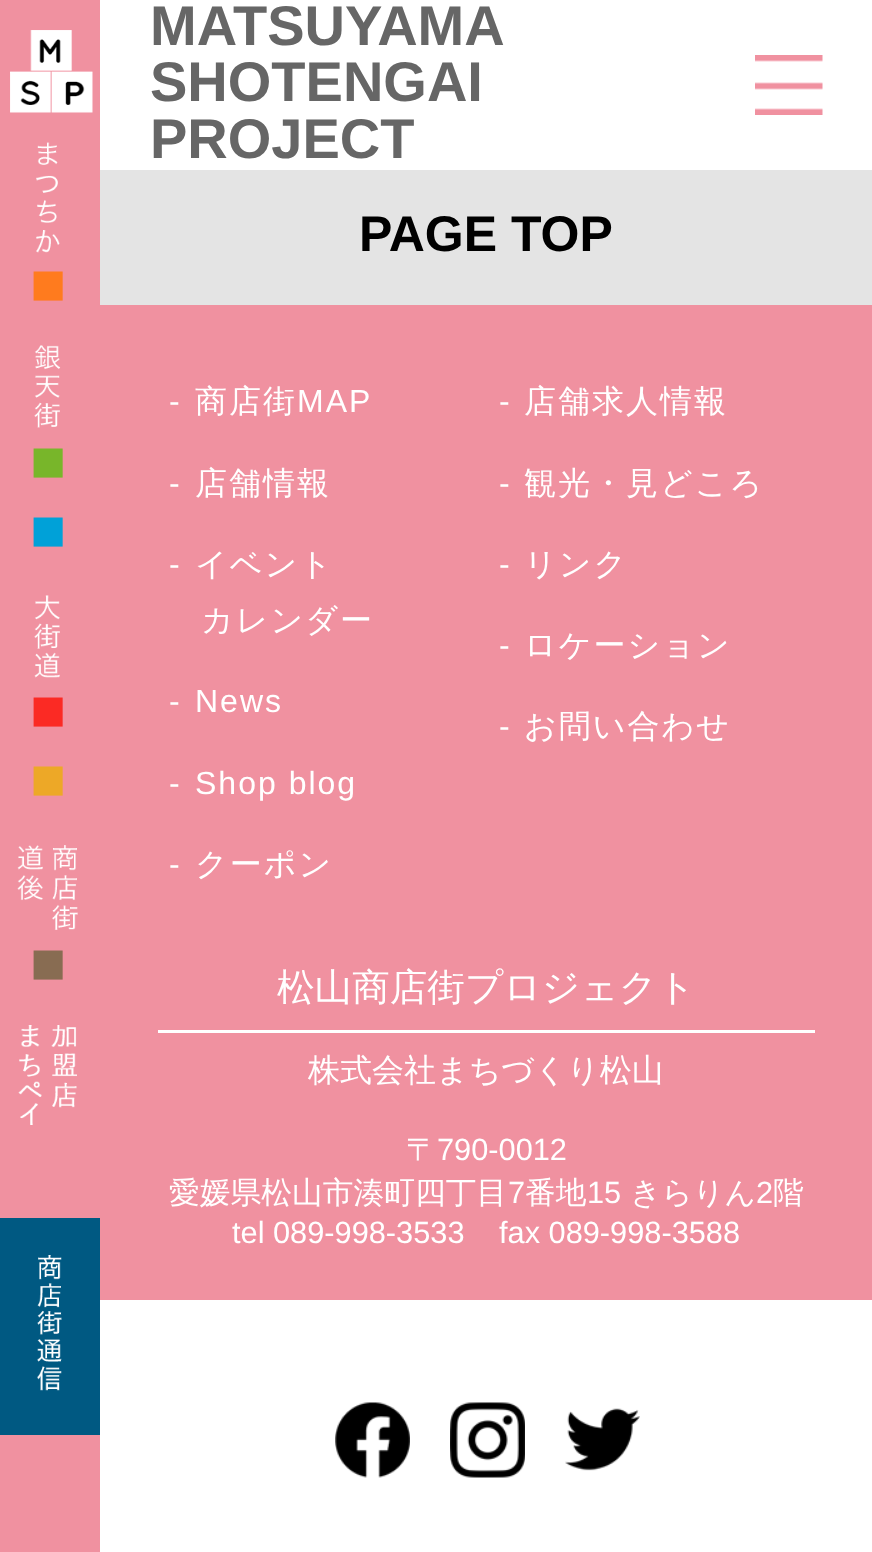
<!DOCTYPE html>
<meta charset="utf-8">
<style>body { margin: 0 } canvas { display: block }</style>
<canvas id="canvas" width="872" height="1552"></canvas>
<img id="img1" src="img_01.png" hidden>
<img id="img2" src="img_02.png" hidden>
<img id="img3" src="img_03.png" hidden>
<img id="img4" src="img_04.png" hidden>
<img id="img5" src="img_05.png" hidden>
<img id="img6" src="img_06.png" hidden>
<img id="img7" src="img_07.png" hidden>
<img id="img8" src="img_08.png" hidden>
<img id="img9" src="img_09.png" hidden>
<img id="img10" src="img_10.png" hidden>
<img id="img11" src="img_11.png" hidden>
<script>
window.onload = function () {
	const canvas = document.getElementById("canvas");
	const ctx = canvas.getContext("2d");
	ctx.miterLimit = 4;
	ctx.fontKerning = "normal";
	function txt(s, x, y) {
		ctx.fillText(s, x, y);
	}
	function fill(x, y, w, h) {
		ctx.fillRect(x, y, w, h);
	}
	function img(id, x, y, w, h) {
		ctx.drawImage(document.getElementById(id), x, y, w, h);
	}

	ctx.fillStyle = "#FFFFFF";
	fill(0, 0, 872, 1552);
	img("img1", 755, 55, 68, 60);
	ctx.fillStyle = "#F091A0";
	fill(0, 0, 100, 1552);
	img("img2", 10, 30, 83, 83);
	img("img3", 36, 142, 24, 111);
	img("img4", 34, 345, 27, 83);
	img("img5", 34, 595, 26, 83);
	img("img6", 17, 845, 61, 85);
	img("img7", 18, 1025, 59, 100);
	ctx.fillStyle = "#005982";
	fill(0, 1218, 100, 217);
	img("img8", 37, 1255, 25, 136);
	ctx.fillStyle = "#E4E4E4";
	fill(100, 170, 772, 135);
	ctx.fillStyle = "#F091A0";
	fill(100, 305, 772, 995);
	ctx.fillStyle = "#FFFFFF";
	fill(158, 1030, 657, 3);
	img("img9", 335, 1402, 75, 76);
	img("img10", 450, 1402, 75, 76);
	img("img11", 565, 1408, 75, 63);
	ctx.font = "bold 56px Liberation Sans";
	ctx.fillStyle = "#666666";
	txt("MATSUYAMA", 150, 45);
	txt("SHOTENGAI", 150, 101);
	txt("PROJECT", 150, 158);
	ctx.letterSpacing = "4px";
	ctx.font = "60px Liberation Sans";
	ctx.fillStyle = "#FF7B1E";
	txt("■", 30, 304);
	ctx.fillStyle = "#78B62A";
	txt("■", 30, 481);
	ctx.fillStyle = "#00A1D8";
	txt("■", 30, 550);
	ctx.fillStyle = "#FB2A24";
	txt("■", 30, 730);
	ctx.fillStyle = "#EDA827";
	txt("■", 30, 799);
	ctx.fillStyle = "#886C52";
	txt("■", 30, 983);
	ctx.letterSpacing = "0px";
	ctx.font = "bold 50px Liberation Sans";
	ctx.fillStyle = "#000000";
	txt("PAGE TOP", 359, 251);
	ctx.letterSpacing = "2px";
	ctx.font = "32px Liberation Sans";
	ctx.fillStyle = "#FFFFFF";
	txt("-", 169, 412);
	ctx.font = "500 32px WenQuanYi Zen Hei";
	txt("商店街", 195, 412);
	ctx.font = "32px Liberation Sans";
	txt("MAP", 297, 412);
	txt("-", 169, 494);
	ctx.font = "500 32px WenQuanYi Zen Hei";
	txt("店舗情報", 195, 494);
	ctx.font = "32px Liberation Sans";
	txt("-", 169, 575);
	ctx.font = "500 32px WenQuanYi Zen Hei";
	txt("イベント", 195, 575);
	txt("カレンダー", 201, 631);
	ctx.font = "32px Liberation Sans";
	txt("-", 169, 712);
	txt("News", 195, 712);
	txt("-", 169, 794);
	txt("Shop blog", 195, 794);
	txt("-", 169, 875);
	ctx.font = "500 32px WenQuanYi Zen Hei";
	txt("クーポン", 195, 875);
	ctx.font = "32px Liberation Sans";
	txt("-", 499, 412);
	ctx.font = "500 32px WenQuanYi Zen Hei";
	txt("店舗求人情報", 524, 412);
	ctx.font = "32px Liberation Sans";
	txt("-", 499, 494);
	ctx.font = "500 32px WenQuanYi Zen Hei";
	txt("観光・見どころ", 524, 494);
	ctx.font = "32px Liberation Sans";
	txt("-", 499, 575);
	ctx.font = "500 32px WenQuanYi Zen Hei";
	txt("リンク", 524, 575);
	ctx.font = "32px Liberation Sans";
	txt("-", 499, 656);
	ctx.font = "500 32px WenQuanYi Zen Hei";
	txt("ロケーション", 524, 656);
	ctx.font = "32px Liberation Sans";
	txt("-", 499, 737);
	ctx.font = "500 32px WenQuanYi Zen Hei";
	txt("お問い合わせ", 524, 737);
	ctx.letterSpacing = "0px";
	ctx.font = "500 37.6px WenQuanYi Zen Hei";
	txt("松山商店街プロジェクト", 277, 1000);
	ctx.font = "500 32px WenQuanYi Zen Hei";
	txt("株式会社まちづくり松山", 308, 1081);
	ctx.font = "500 30.75px WenQuanYi Zen Hei";
	txt("〒", 406, 1160);
	ctx.font = "30.75px Liberation Sans";
	txt("790-0012", 437, 1160);
	ctx.font = "500 30.75px WenQuanYi Zen Hei";
	txt("愛媛県松山市湊町四丁目", 169, 1203);
	ctx.font = "30.75px Liberation Sans";
	txt("7", 508, 1203);
	ctx.font = "500 30.75px WenQuanYi Zen Hei";
	txt("番地", 525, 1203);
	ctx.font = "30.75px Liberation Sans";
	txt("15", 587, 1203);
	ctx.font = "500 30.75px WenQuanYi Zen Hei";
	txt("きらりん", 630, 1203);
	ctx.font = "30.75px Liberation Sans";
	txt("2", 756, 1203);
	ctx.font = "500 30.75px WenQuanYi Zen Hei";
	txt("階", 773, 1203);
	ctx.font = "30.75px Liberation Sans";
	txt("tel 089-998-3533", 232, 1243);
	txt("fax 089-998-3588", 499, 1243);
};
</script>
